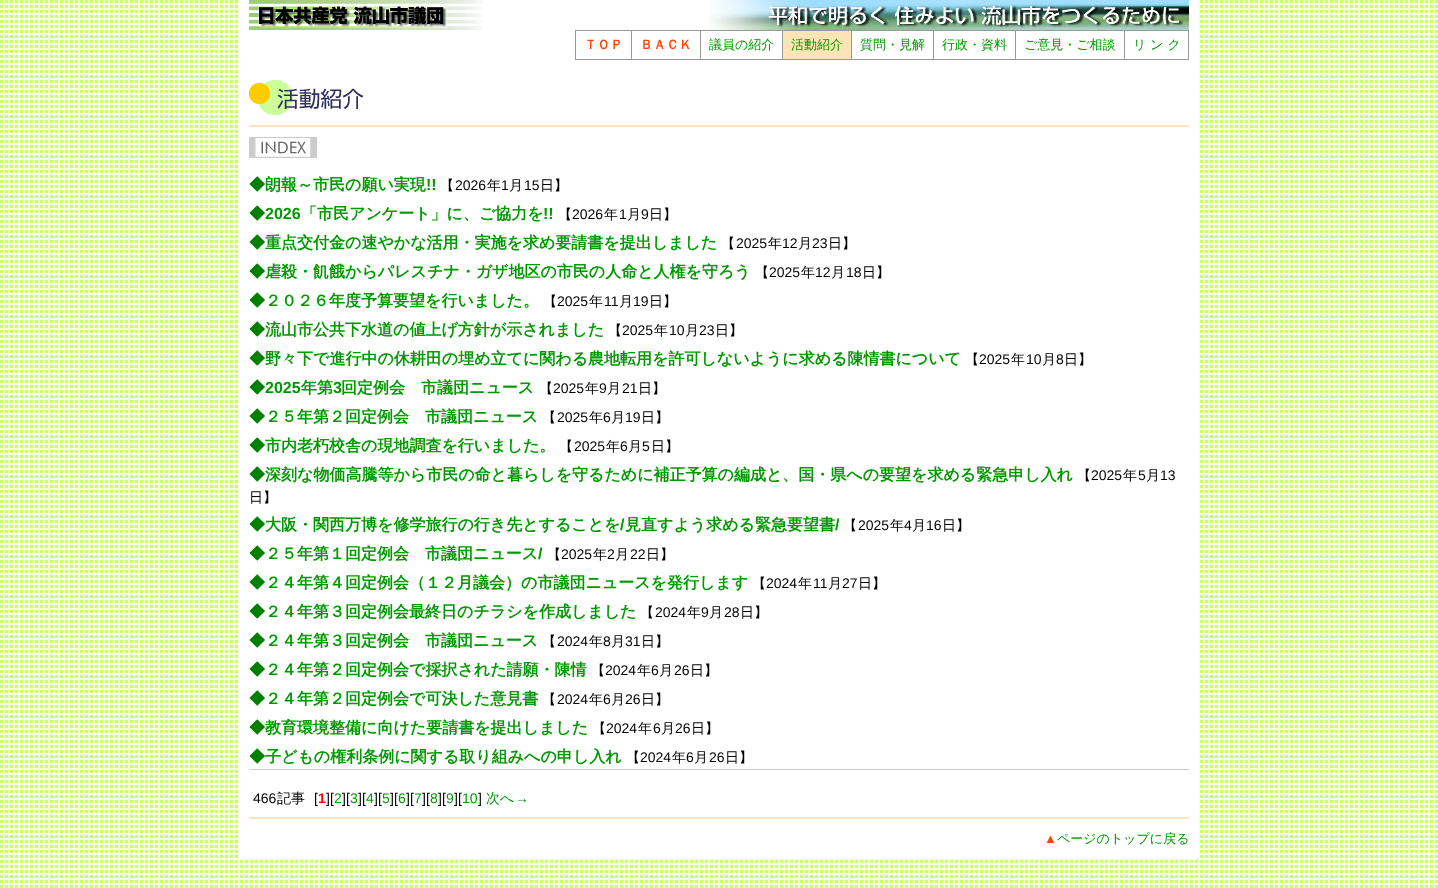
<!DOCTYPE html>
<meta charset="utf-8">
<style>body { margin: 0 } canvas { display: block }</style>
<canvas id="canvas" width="1438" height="888"></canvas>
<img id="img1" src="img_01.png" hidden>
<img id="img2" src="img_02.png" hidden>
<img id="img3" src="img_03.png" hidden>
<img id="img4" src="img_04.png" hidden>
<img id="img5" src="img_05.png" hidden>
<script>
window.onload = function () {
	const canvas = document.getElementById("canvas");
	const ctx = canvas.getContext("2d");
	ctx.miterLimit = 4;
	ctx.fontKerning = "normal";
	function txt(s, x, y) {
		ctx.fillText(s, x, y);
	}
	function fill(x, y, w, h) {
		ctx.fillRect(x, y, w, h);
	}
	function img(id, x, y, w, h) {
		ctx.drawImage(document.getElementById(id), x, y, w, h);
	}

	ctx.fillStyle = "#FFFFFF";
	fill(0, 0, 1438, 888);
	img("img1", 0, 0, 1438, 888);
	fill(239, 0, 960, 859);
	img("img2", 249, 0, 234, 30);
	img("img3", 709, 0, 480, 30);
	ctx.strokeStyle = "#999999";
	ctx.strokeRect(575.5, 30.5, 56, 29);
	ctx.strokeRect(631.5, 30.5, 69, 29);
	ctx.strokeRect(700.5, 30.5, 82, 29);
	ctx.fillStyle = "#FFE4B5";
	ctx.beginPath();
	ctx.rect(782.5, 30.5, 69, 29);
	ctx.fill();
	ctx.stroke();
	ctx.strokeRect(851.5, 30.5, 82, 29);
	ctx.strokeRect(933.5, 30.5, 82, 29);
	ctx.strokeRect(1015.5, 30.5, 109, 29);
	ctx.strokeRect(1124.5, 30.5, 64, 29);
	ctx.fillStyle = "#FFE4C4";
	fill(249, 125, 940, 2);
	img("img4", 249, 80, 115, 35);
	img("img5", 249, 137, 68, 21);
	ctx.fillStyle = "#CCCCCC";
	fill(249, 769, 940, 1);
	ctx.fillStyle = "#FFE4C4";
	fill(249, 817, 940, 2);
	ctx.font = "bold 13px WenQuanYi Zen Hei";
	ctx.fillStyle = "#FF4500";
	txt("ＴＯＰ", 584, 49);
	txt("ＢＡＣＫ", 640, 49);
	ctx.font = "500 13px WenQuanYi Zen Hei";
	ctx.fillStyle = "#009900";
	txt("議員の紹介", 709, 49);
	txt("活動紹介", 791, 49);
	txt("質問・見解", 860, 49);
	txt("行政・資料", 942, 49);
	txt("ご意見・ご相談", 1024, 49);
	txt("リ ン ク", 1133, 49);
	ctx.font = "bold 16px WenQuanYi Zen Hei";
	ctx.fillStyle = "#008000";
	txt("◆", 249, 190);
	ctx.fillStyle = "#009900";
	txt("朗報～市民の願い実現", 265, 190);
	ctx.font = "bold 16px Liberation Sans";
	txt("!!", 426, 190);
	ctx.font = "500 14px WenQuanYi Zen Hei";
	ctx.fillStyle = "#000000";
	txt("【", 440, 190);
	ctx.font = "14px Liberation Sans";
	txt("2026", 455, 190);
	ctx.font = "500 14px WenQuanYi Zen Hei";
	txt("年", 487, 190);
	ctx.font = "14px Liberation Sans";
	txt("1", 501, 190);
	ctx.font = "500 14px WenQuanYi Zen Hei";
	txt("月", 509, 190);
	ctx.font = "14px Liberation Sans";
	txt("15", 524, 190);
	ctx.font = "500 14px WenQuanYi Zen Hei";
	txt("日】", 540, 190);
	ctx.font = "bold 16px WenQuanYi Zen Hei";
	ctx.fillStyle = "#008000";
	txt("◆", 249, 219);
	ctx.font = "bold 16px Liberation Sans";
	ctx.fillStyle = "#009900";
	txt("2026", 265, 219);
	ctx.font = "bold 16px WenQuanYi Zen Hei";
	txt("「市民アンケート」に、ご協力を", 301, 219);
	ctx.font = "bold 16px Liberation Sans";
	txt("!!", 543, 219);
	ctx.font = "500 14px WenQuanYi Zen Hei";
	ctx.fillStyle = "#000000";
	txt("【", 558, 219);
	ctx.font = "14px Liberation Sans";
	txt("2026", 572, 219);
	ctx.font = "500 14px WenQuanYi Zen Hei";
	txt("年", 604, 219);
	ctx.font = "14px Liberation Sans";
	txt("1", 619, 219);
	ctx.font = "500 14px WenQuanYi Zen Hei";
	txt("月", 627, 219);
	ctx.font = "14px Liberation Sans";
	txt("9", 641, 219);
	ctx.font = "500 14px WenQuanYi Zen Hei";
	txt("日】", 649, 219);
	ctx.font = "bold 16px WenQuanYi Zen Hei";
	ctx.fillStyle = "#008000";
	txt("◆", 249, 248);
	ctx.fillStyle = "#009900";
	txt("重点交付金の速やかな活用・実施を求め要請書を提出しました", 265, 248);
	ctx.font = "500 14px WenQuanYi Zen Hei";
	ctx.fillStyle = "#000000";
	txt("【", 721, 248);
	ctx.font = "14px Liberation Sans";
	txt("2025", 736, 248);
	ctx.font = "500 14px WenQuanYi Zen Hei";
	txt("年", 768, 248);
	ctx.font = "14px Liberation Sans";
	txt("12", 782, 248);
	ctx.font = "500 14px WenQuanYi Zen Hei";
	txt("月", 798, 248);
	ctx.font = "14px Liberation Sans";
	txt("23", 812, 248);
	ctx.font = "500 14px WenQuanYi Zen Hei";
	txt("日】", 828, 248);
	ctx.font = "bold 16px WenQuanYi Zen Hei";
	ctx.fillStyle = "#008000";
	txt("◆", 249, 277);
	ctx.fillStyle = "#009900";
	txt("虐殺・飢餓からパレスチナ・ガザ地区の市民の人命と人権を守ろう", 265, 277);
	ctx.font = "500 14px WenQuanYi Zen Hei";
	ctx.fillStyle = "#000000";
	txt("【", 755, 277);
	ctx.font = "14px Liberation Sans";
	txt("2025", 769, 277);
	ctx.font = "500 14px WenQuanYi Zen Hei";
	txt("年", 801, 277);
	ctx.font = "14px Liberation Sans";
	txt("12", 815, 277);
	ctx.font = "500 14px WenQuanYi Zen Hei";
	txt("月", 831, 277);
	ctx.font = "14px Liberation Sans";
	txt("18", 846, 277);
	ctx.font = "500 14px WenQuanYi Zen Hei";
	txt("日】", 862, 277);
	ctx.font = "bold 16px WenQuanYi Zen Hei";
	ctx.fillStyle = "#008000";
	txt("◆", 249, 306);
	ctx.fillStyle = "#009900";
	txt("２０２６年度予算要望を行いました。", 265, 306);
	ctx.font = "500 14px WenQuanYi Zen Hei";
	ctx.fillStyle = "#000000";
	txt("【", 543, 306);
	ctx.font = "14px Liberation Sans";
	txt("2025", 557, 306);
	ctx.font = "500 14px WenQuanYi Zen Hei";
	txt("年", 589, 306);
	ctx.font = "14px Liberation Sans";
	txt("11", 604, 306);
	ctx.font = "500 14px WenQuanYi Zen Hei";
	txt("月", 619, 306);
	ctx.font = "14px Liberation Sans";
	txt("19", 633, 306);
	ctx.font = "500 14px WenQuanYi Zen Hei";
	txt("日】", 649, 306);
	ctx.font = "bold 16px WenQuanYi Zen Hei";
	ctx.fillStyle = "#008000";
	txt("◆", 249, 335);
	ctx.fillStyle = "#009900";
	txt("流山市公共下水道の値上げ方針が示されました", 265, 335);
	ctx.font = "500 14px WenQuanYi Zen Hei";
	ctx.fillStyle = "#000000";
	txt("【", 608, 335);
	ctx.font = "14px Liberation Sans";
	txt("2025", 622, 335);
	ctx.font = "500 14px WenQuanYi Zen Hei";
	txt("年", 654, 335);
	ctx.font = "14px Liberation Sans";
	txt("10", 669, 335);
	ctx.font = "500 14px WenQuanYi Zen Hei";
	txt("月", 685, 335);
	ctx.font = "14px Liberation Sans";
	txt("23", 699, 335);
	ctx.font = "500 14px WenQuanYi Zen Hei";
	txt("日】", 715, 335);
	ctx.font = "bold 16px WenQuanYi Zen Hei";
	ctx.fillStyle = "#008000";
	txt("◆", 249, 364);
	ctx.fillStyle = "#009900";
	txt("野々下で進行中の休耕田の埋め立てに関わる農地転用を許可しないように求める陳情書について", 265, 364);
	ctx.font = "500 14px WenQuanYi Zen Hei";
	ctx.fillStyle = "#000000";
	txt("【", 965, 364);
	ctx.font = "14px Liberation Sans";
	txt("2025", 979, 364);
	ctx.font = "500 14px WenQuanYi Zen Hei";
	txt("年", 1011, 364);
	ctx.font = "14px Liberation Sans";
	txt("10", 1026, 364);
	ctx.font = "500 14px WenQuanYi Zen Hei";
	txt("月", 1042, 364);
	ctx.font = "14px Liberation Sans";
	txt("8", 1056, 364);
	ctx.font = "500 14px WenQuanYi Zen Hei";
	txt("日】", 1064, 364);
	ctx.font = "bold 16px WenQuanYi Zen Hei";
	ctx.fillStyle = "#008000";
	txt("◆", 249, 393);
	ctx.font = "bold 16px Liberation Sans";
	ctx.fillStyle = "#009900";
	txt("2025", 265, 393);
	ctx.font = "bold 16px WenQuanYi Zen Hei";
	txt("年第", 301, 393);
	ctx.font = "bold 16px Liberation Sans";
	txt("3", 333, 393);
	ctx.font = "bold 16px WenQuanYi Zen Hei";
	txt("回定例会　市議団ニュース", 341, 393);
	ctx.font = "500 14px WenQuanYi Zen Hei";
	ctx.fillStyle = "#000000";
	txt("【", 539, 393);
	ctx.font = "14px Liberation Sans";
	txt("2025", 553, 393);
	ctx.font = "500 14px WenQuanYi Zen Hei";
	txt("年", 585, 393);
	ctx.font = "14px Liberation Sans";
	txt("9", 599, 393);
	ctx.font = "500 14px WenQuanYi Zen Hei";
	txt("月", 607, 393);
	ctx.font = "14px Liberation Sans";
	txt("21", 622, 393);
	ctx.font = "500 14px WenQuanYi Zen Hei";
	txt("日】", 638, 393);
	ctx.font = "bold 16px WenQuanYi Zen Hei";
	ctx.fillStyle = "#008000";
	txt("◆", 249, 422);
	ctx.fillStyle = "#009900";
	txt("２５年第２回定例会　市議団ニュース", 265, 422);
	ctx.font = "500 14px WenQuanYi Zen Hei";
	ctx.fillStyle = "#000000";
	txt("【", 542, 422);
	ctx.font = "14px Liberation Sans";
	txt("2025", 557, 422);
	ctx.font = "500 14px WenQuanYi Zen Hei";
	txt("年", 589, 422);
	ctx.font = "14px Liberation Sans";
	txt("6", 603, 422);
	ctx.font = "500 14px WenQuanYi Zen Hei";
	txt("月", 611, 422);
	ctx.font = "14px Liberation Sans";
	txt("19", 625, 422);
	ctx.font = "500 14px WenQuanYi Zen Hei";
	txt("日】", 641, 422);
	ctx.font = "bold 16px WenQuanYi Zen Hei";
	ctx.fillStyle = "#008000";
	txt("◆", 249, 451);
	ctx.fillStyle = "#009900";
	txt("市内老朽校舎の現地調査を行いました。", 265, 451);
	ctx.font = "500 14px WenQuanYi Zen Hei";
	ctx.fillStyle = "#000000";
	txt("【", 559, 451);
	ctx.font = "14px Liberation Sans";
	txt("2025", 574, 451);
	ctx.font = "500 14px WenQuanYi Zen Hei";
	txt("年", 606, 451);
	ctx.font = "14px Liberation Sans";
	txt("6", 620, 451);
	ctx.font = "500 14px WenQuanYi Zen Hei";
	txt("月", 628, 451);
	ctx.font = "14px Liberation Sans";
	txt("5", 642, 451);
	ctx.font = "500 14px WenQuanYi Zen Hei";
	txt("日】", 651, 451);
	ctx.font = "bold 16px WenQuanYi Zen Hei";
	ctx.fillStyle = "#008000";
	txt("◆", 249, 480);
	ctx.fillStyle = "#009900";
	txt("深刻な物価高騰等から市民の命と暮らしを守るために補正予算の編成と、国・県への要望を求める緊急申し入れ", 265, 480);
	ctx.font = "500 14px WenQuanYi Zen Hei";
	ctx.fillStyle = "#000000";
	txt("【", 1077, 480);
	ctx.font = "14px Liberation Sans";
	txt("2025", 1091, 480);
	ctx.font = "500 14px WenQuanYi Zen Hei";
	txt("年", 1123, 480);
	ctx.font = "14px Liberation Sans";
	txt("5", 1138, 480);
	ctx.font = "500 14px WenQuanYi Zen Hei";
	txt("月", 1146, 480);
	ctx.font = "14px Liberation Sans";
	txt("13", 1160, 480);
	ctx.font = "500 14px WenQuanYi Zen Hei";
	txt("日】", 249, 502);
	ctx.font = "bold 16px WenQuanYi Zen Hei";
	ctx.fillStyle = "#008000";
	txt("◆", 249, 530);
	ctx.fillStyle = "#009900";
	txt("大阪・関西万博を修学旅行の行き先とすることを", 265, 530);
	ctx.font = "bold 16px Liberation Sans";
	txt("/", 620, 530);
	ctx.font = "bold 16px WenQuanYi Zen Hei";
	txt("見直すよう求める緊急要望書", 625, 530);
	ctx.font = "bold 16px Liberation Sans";
	txt("/", 835, 530);
	ctx.font = "500 14px WenQuanYi Zen Hei";
	ctx.fillStyle = "#000000";
	txt("【", 843, 530);
	ctx.font = "14px Liberation Sans";
	txt("2025", 858, 530);
	ctx.font = "500 14px WenQuanYi Zen Hei";
	txt("年", 890, 530);
	ctx.font = "14px Liberation Sans";
	txt("4", 904, 530);
	ctx.font = "500 14px WenQuanYi Zen Hei";
	txt("月", 912, 530);
	ctx.font = "14px Liberation Sans";
	txt("16", 926, 530);
	ctx.font = "500 14px WenQuanYi Zen Hei";
	txt("日】", 942, 530);
	ctx.font = "bold 16px WenQuanYi Zen Hei";
	ctx.fillStyle = "#008000";
	txt("◆", 249, 559);
	ctx.fillStyle = "#009900";
	txt("２５年第１回定例会　市議団ニュース", 265, 559);
	ctx.font = "bold 16px Liberation Sans";
	txt("/", 538, 559);
	ctx.font = "500 14px WenQuanYi Zen Hei";
	ctx.fillStyle = "#000000";
	txt("【", 547, 559);
	ctx.font = "14px Liberation Sans";
	txt("2025", 561, 559);
	ctx.font = "500 14px WenQuanYi Zen Hei";
	txt("年", 593, 559);
	ctx.font = "14px Liberation Sans";
	txt("2", 607, 559);
	ctx.font = "500 14px WenQuanYi Zen Hei";
	txt("月", 615, 559);
	ctx.font = "14px Liberation Sans";
	txt("22", 630, 559);
	ctx.font = "500 14px WenQuanYi Zen Hei";
	txt("日】", 646, 559);
	ctx.font = "bold 16px WenQuanYi Zen Hei";
	ctx.fillStyle = "#008000";
	txt("◆", 249, 588);
	ctx.fillStyle = "#009900";
	txt("２４年第４回定例会（１２月議会）の市議団ニュースを発行します", 265, 588);
	ctx.font = "500 14px WenQuanYi Zen Hei";
	ctx.fillStyle = "#000000";
	txt("【", 752, 588);
	ctx.font = "14px Liberation Sans";
	txt("2024", 766, 588);
	ctx.font = "500 14px WenQuanYi Zen Hei";
	txt("年", 798, 588);
	ctx.font = "14px Liberation Sans";
	txt("11", 813, 588);
	ctx.font = "500 14px WenQuanYi Zen Hei";
	txt("月", 828, 588);
	ctx.font = "14px Liberation Sans";
	txt("27", 842, 588);
	ctx.font = "500 14px WenQuanYi Zen Hei";
	txt("日】", 858, 588);
	ctx.font = "bold 16px WenQuanYi Zen Hei";
	ctx.fillStyle = "#008000";
	txt("◆", 249, 617);
	ctx.fillStyle = "#009900";
	txt("２４年第３回定例会最終日のチラシを作成しました", 265, 617);
	ctx.font = "500 14px WenQuanYi Zen Hei";
	ctx.fillStyle = "#000000";
	txt("【", 640, 617);
	ctx.font = "14px Liberation Sans";
	txt("2024", 655, 617);
	ctx.font = "500 14px WenQuanYi Zen Hei";
	txt("年", 687, 617);
	ctx.font = "14px Liberation Sans";
	txt("9", 701, 617);
	ctx.font = "500 14px WenQuanYi Zen Hei";
	txt("月", 709, 617);
	ctx.font = "14px Liberation Sans";
	txt("28", 724, 617);
	ctx.font = "500 14px WenQuanYi Zen Hei";
	txt("日】", 740, 617);
	ctx.font = "bold 16px WenQuanYi Zen Hei";
	ctx.fillStyle = "#008000";
	txt("◆", 249, 646);
	ctx.fillStyle = "#009900";
	txt("２４年第３回定例会　市議団ニュース", 265, 646);
	ctx.font = "500 14px WenQuanYi Zen Hei";
	ctx.fillStyle = "#000000";
	txt("【", 542, 646);
	ctx.font = "14px Liberation Sans";
	txt("2024", 557, 646);
	ctx.font = "500 14px WenQuanYi Zen Hei";
	txt("年", 589, 646);
	ctx.font = "14px Liberation Sans";
	txt("8", 603, 646);
	ctx.font = "500 14px WenQuanYi Zen Hei";
	txt("月", 611, 646);
	ctx.font = "14px Liberation Sans";
	txt("31", 625, 646);
	ctx.font = "500 14px WenQuanYi Zen Hei";
	txt("日】", 641, 646);
	ctx.font = "bold 16px WenQuanYi Zen Hei";
	ctx.fillStyle = "#008000";
	txt("◆", 249, 675);
	ctx.fillStyle = "#009900";
	txt("２４年第２回定例会で採択された請願・陳情", 265, 675);
	ctx.font = "500 14px WenQuanYi Zen Hei";
	ctx.fillStyle = "#000000";
	txt("【", 591, 675);
	ctx.font = "14px Liberation Sans";
	txt("2024", 605, 675);
	ctx.font = "500 14px WenQuanYi Zen Hei";
	txt("年", 637, 675);
	ctx.font = "14px Liberation Sans";
	txt("6", 651, 675);
	ctx.font = "500 14px WenQuanYi Zen Hei";
	txt("月", 659, 675);
	ctx.font = "14px Liberation Sans";
	txt("26", 674, 675);
	ctx.font = "500 14px WenQuanYi Zen Hei";
	txt("日】", 690, 675);
	ctx.font = "bold 16px WenQuanYi Zen Hei";
	ctx.fillStyle = "#008000";
	txt("◆", 249, 704);
	ctx.fillStyle = "#009900";
	txt("２４年第２回定例会で可決した意見書", 265, 704);
	ctx.font = "500 14px WenQuanYi Zen Hei";
	ctx.fillStyle = "#000000";
	txt("【", 542, 704);
	ctx.font = "14px Liberation Sans";
	txt("2024", 557, 704);
	ctx.font = "500 14px WenQuanYi Zen Hei";
	txt("年", 589, 704);
	ctx.font = "14px Liberation Sans";
	txt("6", 603, 704);
	ctx.font = "500 14px WenQuanYi Zen Hei";
	txt("月", 611, 704);
	ctx.font = "14px Liberation Sans";
	txt("26", 625, 704);
	ctx.font = "500 14px WenQuanYi Zen Hei";
	txt("日】", 641, 704);
	ctx.font = "bold 16px WenQuanYi Zen Hei";
	ctx.fillStyle = "#008000";
	txt("◆", 249, 733);
	ctx.fillStyle = "#009900";
	txt("教育環境整備に向けた要請書を提出しました", 265, 733);
	ctx.font = "500 14px WenQuanYi Zen Hei";
	ctx.fillStyle = "#000000";
	txt("【", 592, 733);
	ctx.font = "14px Liberation Sans";
	txt("2024", 606, 733);
	ctx.font = "500 14px WenQuanYi Zen Hei";
	txt("年", 638, 733);
	ctx.font = "14px Liberation Sans";
	txt("6", 653, 733);
	ctx.font = "500 14px WenQuanYi Zen Hei";
	txt("月", 661, 733);
	ctx.font = "14px Liberation Sans";
	txt("26", 675, 733);
	ctx.font = "500 14px WenQuanYi Zen Hei";
	txt("日】", 691, 733);
	ctx.font = "bold 16px WenQuanYi Zen Hei";
	ctx.fillStyle = "#008000";
	txt("◆", 249, 762);
	ctx.fillStyle = "#009900";
	txt("子どもの権利条例に関する取り組みへの申し入れ", 265, 762);
	ctx.font = "500 14px WenQuanYi Zen Hei";
	ctx.fillStyle = "#000000";
	txt("【", 626, 762);
	ctx.font = "14px Liberation Sans";
	txt("2024", 640, 762);
	ctx.font = "500 14px WenQuanYi Zen Hei";
	txt("年", 672, 762);
	ctx.font = "14px Liberation Sans";
	txt("6", 686, 762);
	ctx.font = "500 14px WenQuanYi Zen Hei";
	txt("月", 694, 762);
	ctx.font = "14px Liberation Sans";
	txt("26", 709, 762);
	ctx.font = "500 14px WenQuanYi Zen Hei";
	txt("日】", 725, 762);
	ctx.font = "14px Liberation Sans";
	txt("466", 253, 803);
	ctx.font = "500 14px WenQuanYi Zen Hei";
	txt("記事", 277, 803);
	ctx.font = "14px Liberation Sans";
	txt("[", 314, 803);
	ctx.font = "bold 14px Liberation Sans";
	ctx.fillStyle = "#FF0000";
	txt("1", 318, 803);
	ctx.font = "14px Liberation Sans";
	ctx.fillStyle = "#000000";
	txt("][", 326, 803);
	ctx.fillStyle = "#009900";
	txt("2", 334, 803);
	ctx.fillStyle = "#000000";
	txt("][", 342, 803);
	ctx.fillStyle = "#009900";
	txt("3", 350, 803);
	ctx.fillStyle = "#000000";
	txt("][", 358, 803);
	ctx.fillStyle = "#009900";
	txt("4", 366, 803);
	ctx.fillStyle = "#000000";
	txt("][", 374, 803);
	ctx.fillStyle = "#009900";
	txt("5", 382, 803);
	ctx.fillStyle = "#000000";
	txt("][", 390, 803);
	ctx.fillStyle = "#009900";
	txt("6", 398, 803);
	ctx.fillStyle = "#000000";
	txt("][", 406, 803);
	ctx.fillStyle = "#009900";
	txt("7", 414, 803);
	ctx.fillStyle = "#000000";
	txt("][", 422, 803);
	ctx.fillStyle = "#009900";
	txt("8", 430, 803);
	ctx.fillStyle = "#000000";
	txt("][", 438, 803);
	ctx.fillStyle = "#009900";
	txt("9", 446, 803);
	ctx.fillStyle = "#000000";
	txt("][", 454, 803);
	ctx.fillStyle = "#009900";
	txt("10", 462, 803);
	ctx.fillStyle = "#000000";
	txt("]", 478, 803);
	ctx.font = "500 14px WenQuanYi Zen Hei";
	ctx.fillStyle = "#009900";
	txt("次へ", 486, 803);
	ctx.font = "14px Liberation Sans";
	txt("→", 515, 803);
	ctx.font = "13px Liberation Sans";
	ctx.fillStyle = "#FF4500";
	txt("▲", 1044, 843);
	ctx.font = "500 13px WenQuanYi Zen Hei";
	ctx.fillStyle = "#009900";
	txt("ページのトップに戻る", 1057, 843);
};
</script>
